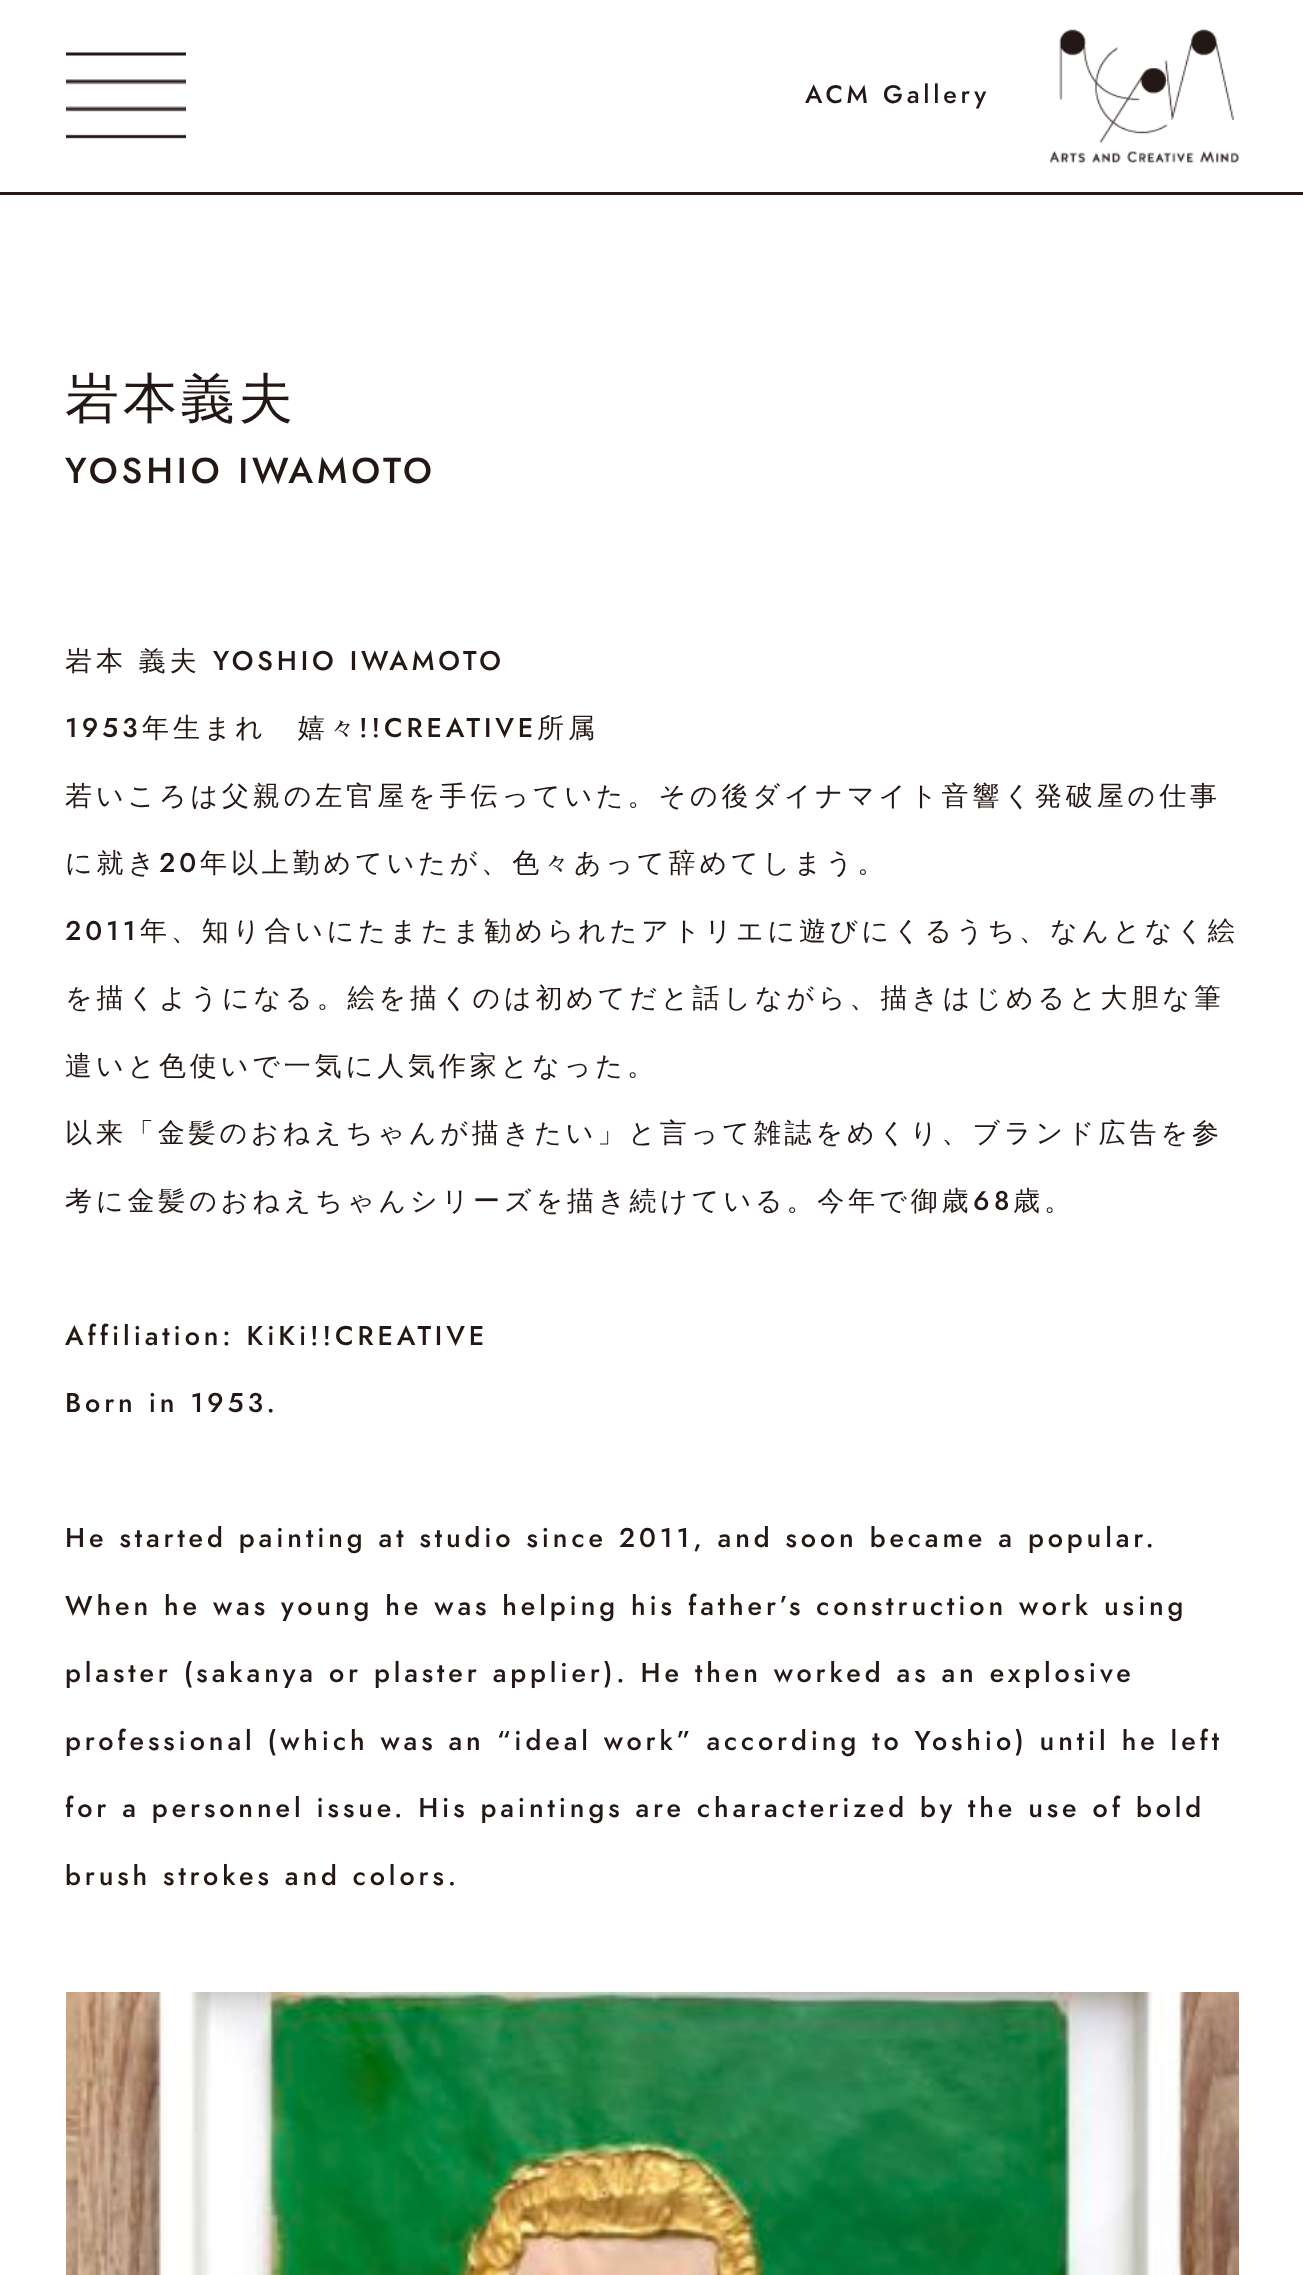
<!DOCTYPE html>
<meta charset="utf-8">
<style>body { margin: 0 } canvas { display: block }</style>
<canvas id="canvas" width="1303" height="2275"></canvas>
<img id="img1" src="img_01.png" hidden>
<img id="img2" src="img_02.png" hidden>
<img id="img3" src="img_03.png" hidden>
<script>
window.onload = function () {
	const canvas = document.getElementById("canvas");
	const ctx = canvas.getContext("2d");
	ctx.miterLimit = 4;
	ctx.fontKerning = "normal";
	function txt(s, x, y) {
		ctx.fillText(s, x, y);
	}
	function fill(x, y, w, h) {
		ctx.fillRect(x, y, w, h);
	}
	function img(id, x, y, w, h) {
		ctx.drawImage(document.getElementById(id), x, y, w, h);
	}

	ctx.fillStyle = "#FFFFFF";
	fill(0, 0, 1303, 2275);
	ctx.fillStyle = "#231815";
	fill(0, 192, 1303, 3);
	img("img1", 66, 52, 120, 87);
	img("img2", 1050, 29, 189, 134);
	img("img3", 66, 1992, 1173, 283);
	ctx.letterSpacing = "3.75px";
	ctx.font = "500 25.25px Jost";
	txt("ACM Gallery", 805, 103);
	ctx.letterSpacing = "3.9px";
	ctx.font = "500 54px WenQuanYi Zen Hei";
	txt("岩本義夫", 65, 417);
	ctx.font = "500 36px Jost";
	txt("YOSHIO IWAMOTO", 65, 483);
	ctx.font = "500 27px WenQuanYi Zen Hei";
	txt("岩本 義夫", 65, 670);
	ctx.font = "500 27px Jost";
	txt("YOSHIO IWAMOTO", 213, 670);
	txt("1953", 65, 737);
	ctx.font = "500 27px WenQuanYi Zen Hei";
	txt("年生まれ　嬉々", 142, 737);
	ctx.font = "500 27px Jost";
	txt("!!CREATIVE", 359, 737);
	ctx.font = "500 27px WenQuanYi Zen Hei";
	txt("所属", 537, 737);
	txt("若いころは父親の左官屋を手伝っていた。その後ダイナマイト音響く発破屋の仕事", 65, 805);
	txt("に就き", 65, 872);
	ctx.font = "500 27px Jost";
	txt("20", 159, 872);
	ctx.font = "500 27px WenQuanYi Zen Hei";
	txt("年以上勤めていたが、色々あって辞めてしまう。", 200, 872);
	ctx.font = "500 27px Jost";
	txt("2011", 65, 940);
	ctx.font = "500 27px WenQuanYi Zen Hei";
	txt("年、知り合いにたまたま勧められたアトリエに遊びにくるうち、なんとなく絵", 140, 940);
	txt("を描くようになる。絵を描くのは初めてだと話しながら、描きはじめると大胆な筆", 65, 1007);
	txt("遣いと色使いで一気に人気作家となった。", 65, 1075);
	txt("以来「金髪のおねえちゃんが描きたい」と言って雑誌をめくり、ブランド広告を参", 65, 1142);
	txt("考に金髪のおねえちゃんシリーズを描き続けている。今年で御歳", 65, 1210);
	ctx.font = "500 27px Jost";
	txt("6８", 973, 1210);
	ctx.font = "500 27px WenQuanYi Zen Hei";
	txt("歳。", 1013, 1210);
	ctx.font = "500 27px Jost";
	txt("Affiliation: KiKi!!CREATIVE", 65, 1345);
	txt("Born in 1953.", 65, 1412);
	txt("He started painting at studio since 2011, and soon became a popular.", 65, 1547);
	txt("When he was young he was helping his father’s construction work using", 65, 1615);
	txt("plaster (sakanya or plaster applier). He then worked as an explosive", 65, 1682);
	txt("professional (which was an “ideal work” according to Yoshio) until he left", 65, 1750);
	txt("for a personnel issue. His paintings are characterized by the use of bold", 65, 1817);
	txt("brush strokes and colors.", 65, 1885);
};
</script>
